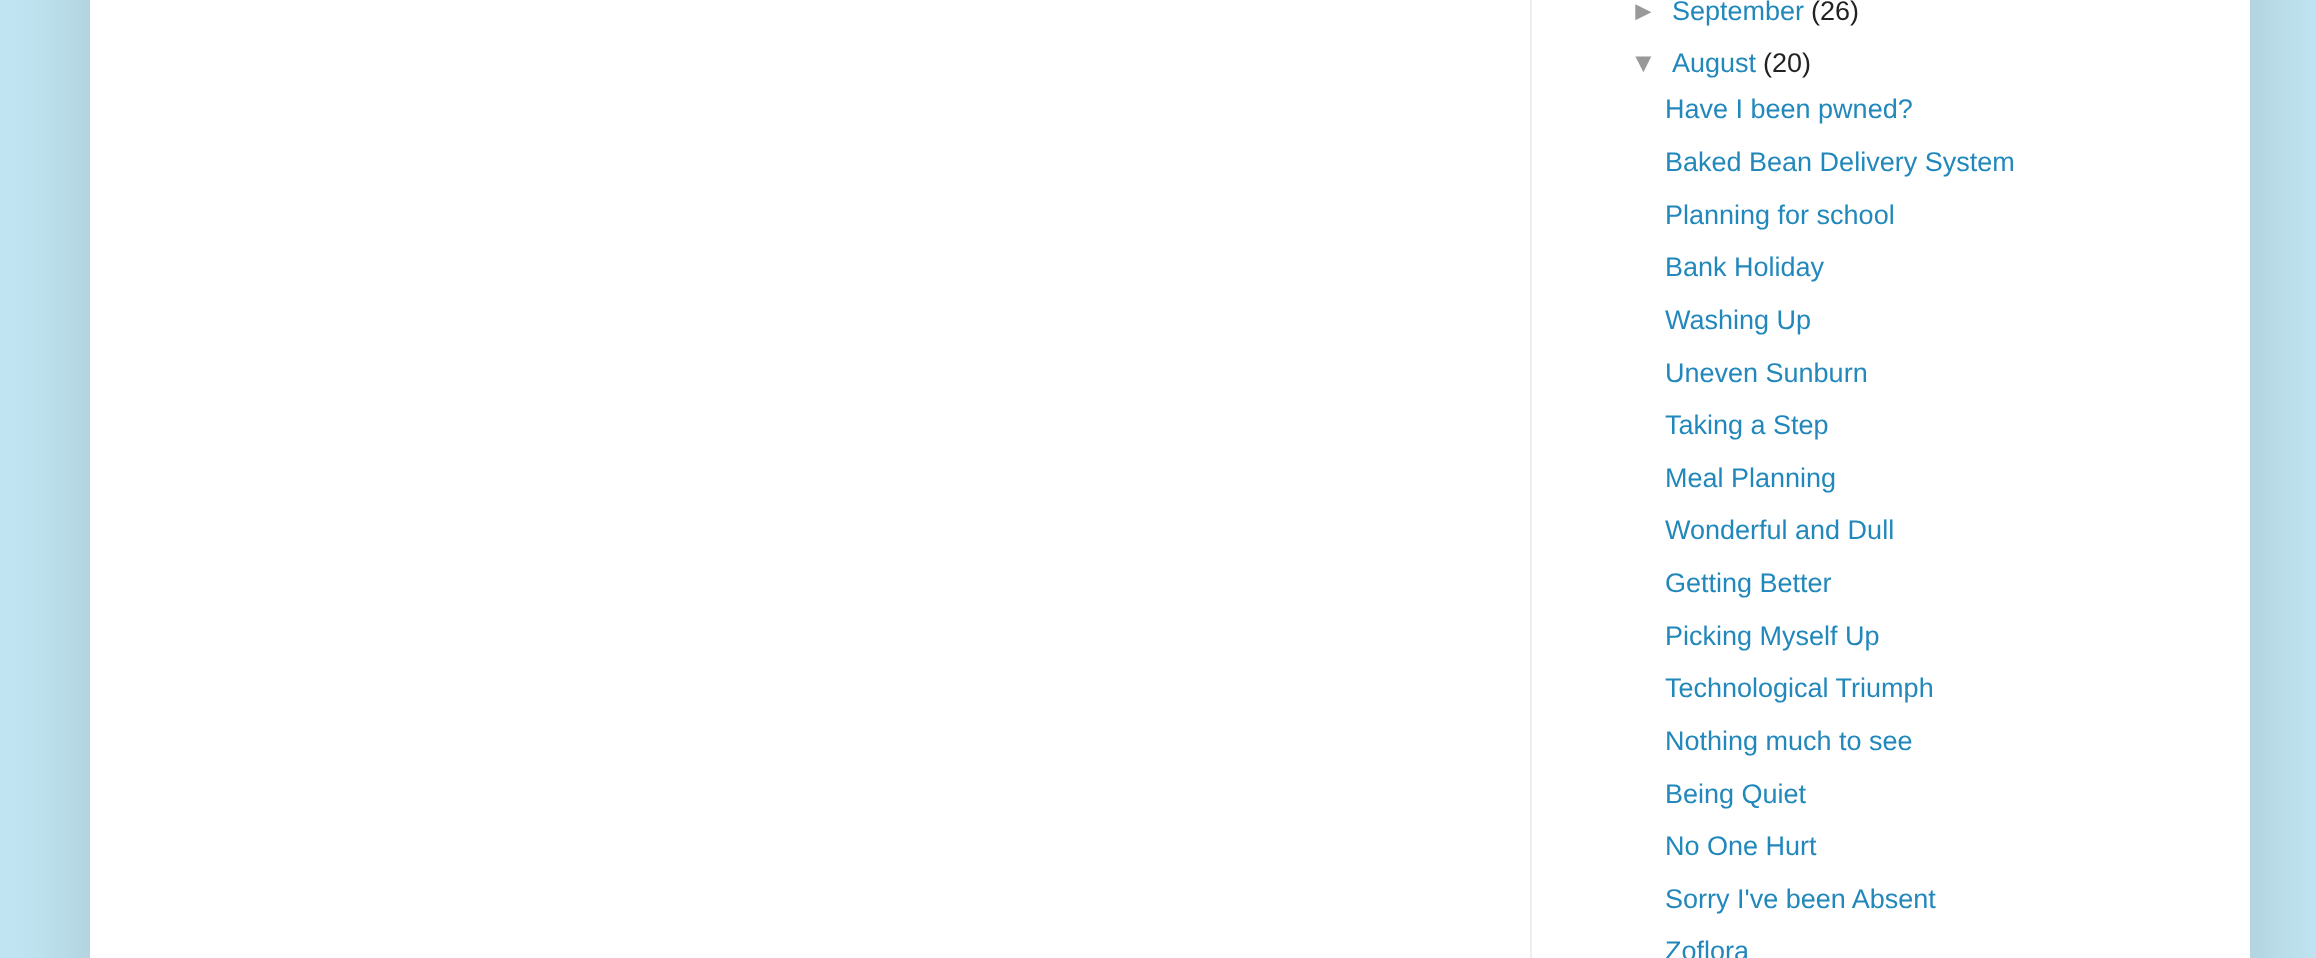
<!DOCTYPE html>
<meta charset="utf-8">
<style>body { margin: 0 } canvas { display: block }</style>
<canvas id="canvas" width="2316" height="958"></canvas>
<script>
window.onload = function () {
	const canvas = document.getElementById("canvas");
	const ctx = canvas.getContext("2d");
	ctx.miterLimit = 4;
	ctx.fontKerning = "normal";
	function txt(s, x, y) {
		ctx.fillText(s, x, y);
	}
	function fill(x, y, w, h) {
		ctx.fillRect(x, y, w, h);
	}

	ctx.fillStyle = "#C1E5F2";
	fill(0, 0, 2316, 958);
	ctx.fillStyle = "rgba(0, 0, 0, 0.15)";
	ctx.filter = "blur(45px)";
	ctx.beginPath();
	ctx.rect(90, -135, 2160, 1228);
	ctx.fill();
	ctx.filter = "none";
	ctx.fillStyle = "#FFFFFF";
	fill(90, 0, 2160, 958);
	ctx.fillStyle = "#EEEEEE";
	fill(1530, 0, 2, 958);
	ctx.font = "27px Liberation Sans";
	ctx.fillStyle = "#999999";
	txt("►", 1630, 20);
	ctx.fillStyle = "#2288BB";
	txt("September", 1672, 20);
	ctx.fillStyle = "#222222";
	txt("(26)", 1811, 20);
	ctx.fillStyle = "#999999";
	txt("▼", 1630, 72);
	ctx.fillStyle = "#2288BB";
	txt("August", 1672, 72);
	ctx.fillStyle = "#222222";
	txt("(20)", 1763, 72);
	ctx.fillStyle = "#2288BB";
	txt("Have I been pwned?", 1665, 118);
	txt("Baked Bean Delivery System", 1665, 171);
	txt("Planning for school", 1665, 224);
	txt("Bank Holiday", 1665, 276);
	txt("Washing Up", 1665, 329);
	txt("Uneven Sunburn", 1665, 382);
	txt("Taking a Step", 1665, 434);
	txt("Meal Planning", 1665, 487);
	txt("Wonderful and Dull", 1665, 539);
	txt("Getting Better", 1665, 592);
	txt("Picking Myself Up", 1665, 645);
	txt("Technological Triumph", 1665, 697);
	txt("Nothing much to see", 1665, 750);
	txt("Being Quiet", 1665, 803);
	txt("No One Hurt", 1665, 855);
	txt("Sorry I've been Absent", 1665, 908);
	txt("Zoflora", 1665, 960);
};
</script>
